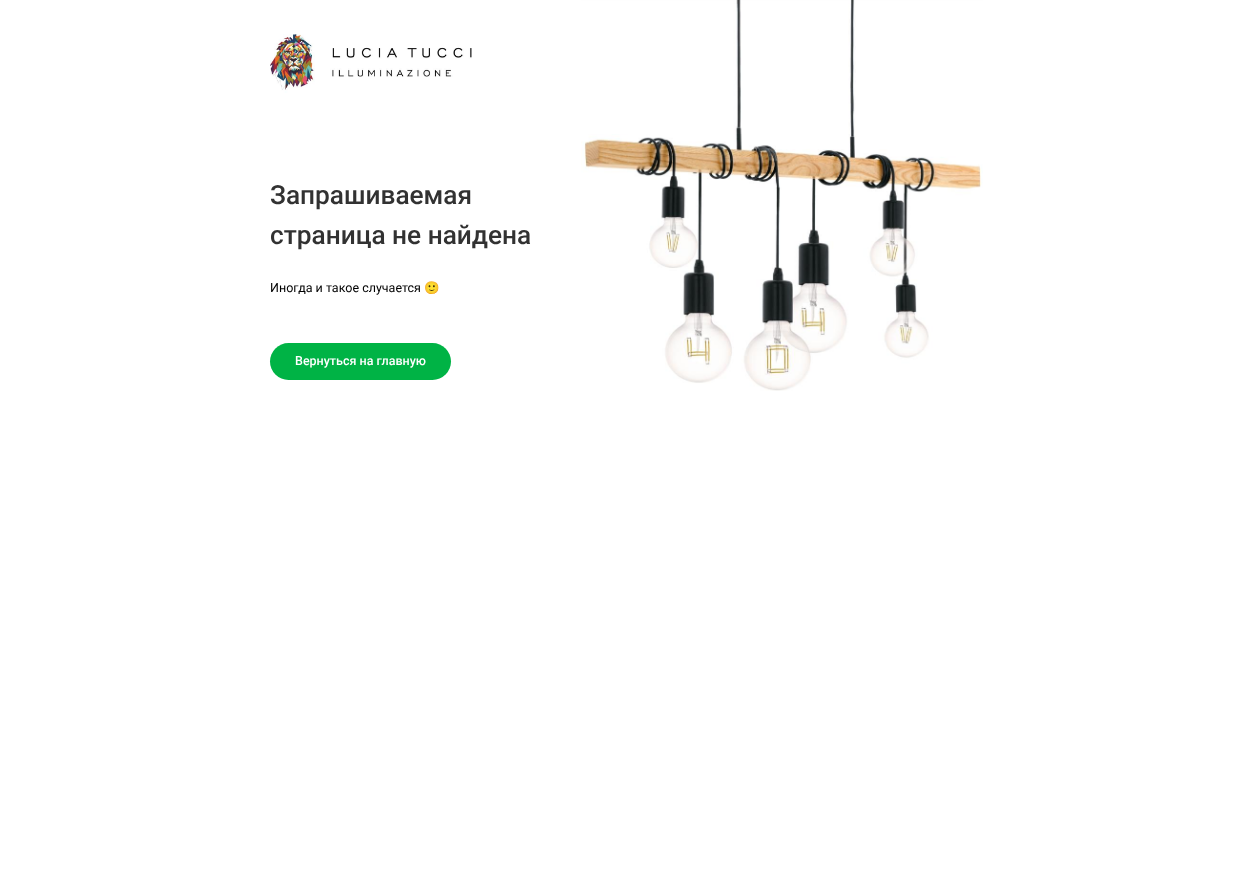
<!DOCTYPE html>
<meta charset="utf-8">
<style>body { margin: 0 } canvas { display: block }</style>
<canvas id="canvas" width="1253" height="878"></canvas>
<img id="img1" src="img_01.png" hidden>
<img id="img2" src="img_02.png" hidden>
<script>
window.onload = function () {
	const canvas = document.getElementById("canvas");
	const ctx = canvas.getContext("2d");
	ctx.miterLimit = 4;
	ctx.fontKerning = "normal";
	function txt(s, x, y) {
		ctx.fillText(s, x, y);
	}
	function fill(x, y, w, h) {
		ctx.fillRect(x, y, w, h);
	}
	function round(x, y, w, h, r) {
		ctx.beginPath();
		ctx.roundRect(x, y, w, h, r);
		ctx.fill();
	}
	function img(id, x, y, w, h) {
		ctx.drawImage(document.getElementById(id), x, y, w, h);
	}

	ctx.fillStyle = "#FFFFFF";
	fill(0, 0, 1253, 878);
	img("img1", 270, 34, 202, 59);
	ctx.fillStyle = "#00B345";
	round(270, 343, 181, 37, 18.5);
	img("img2", 581, 0, 402, 391);
	ctx.font = "500 26.25px Roboto";
	ctx.fillStyle = "#323232";
	txt("Запрашиваемая", 270, 204);
	txt("страница не найдена", 270, 244);
	ctx.font = "12.5px Roboto";
	ctx.fillStyle = "#000000";
	txt("Иногда и такое случается", 270, 292);
	ctx.font = "12.5px Noto Color Emoji";
	txt("🙂", 424, 292);
	ctx.font = "500 12.5px Roboto";
	ctx.fillStyle = "#FFFFFF";
	txt("Вернуться на главную", 295, 365);
};
</script>
